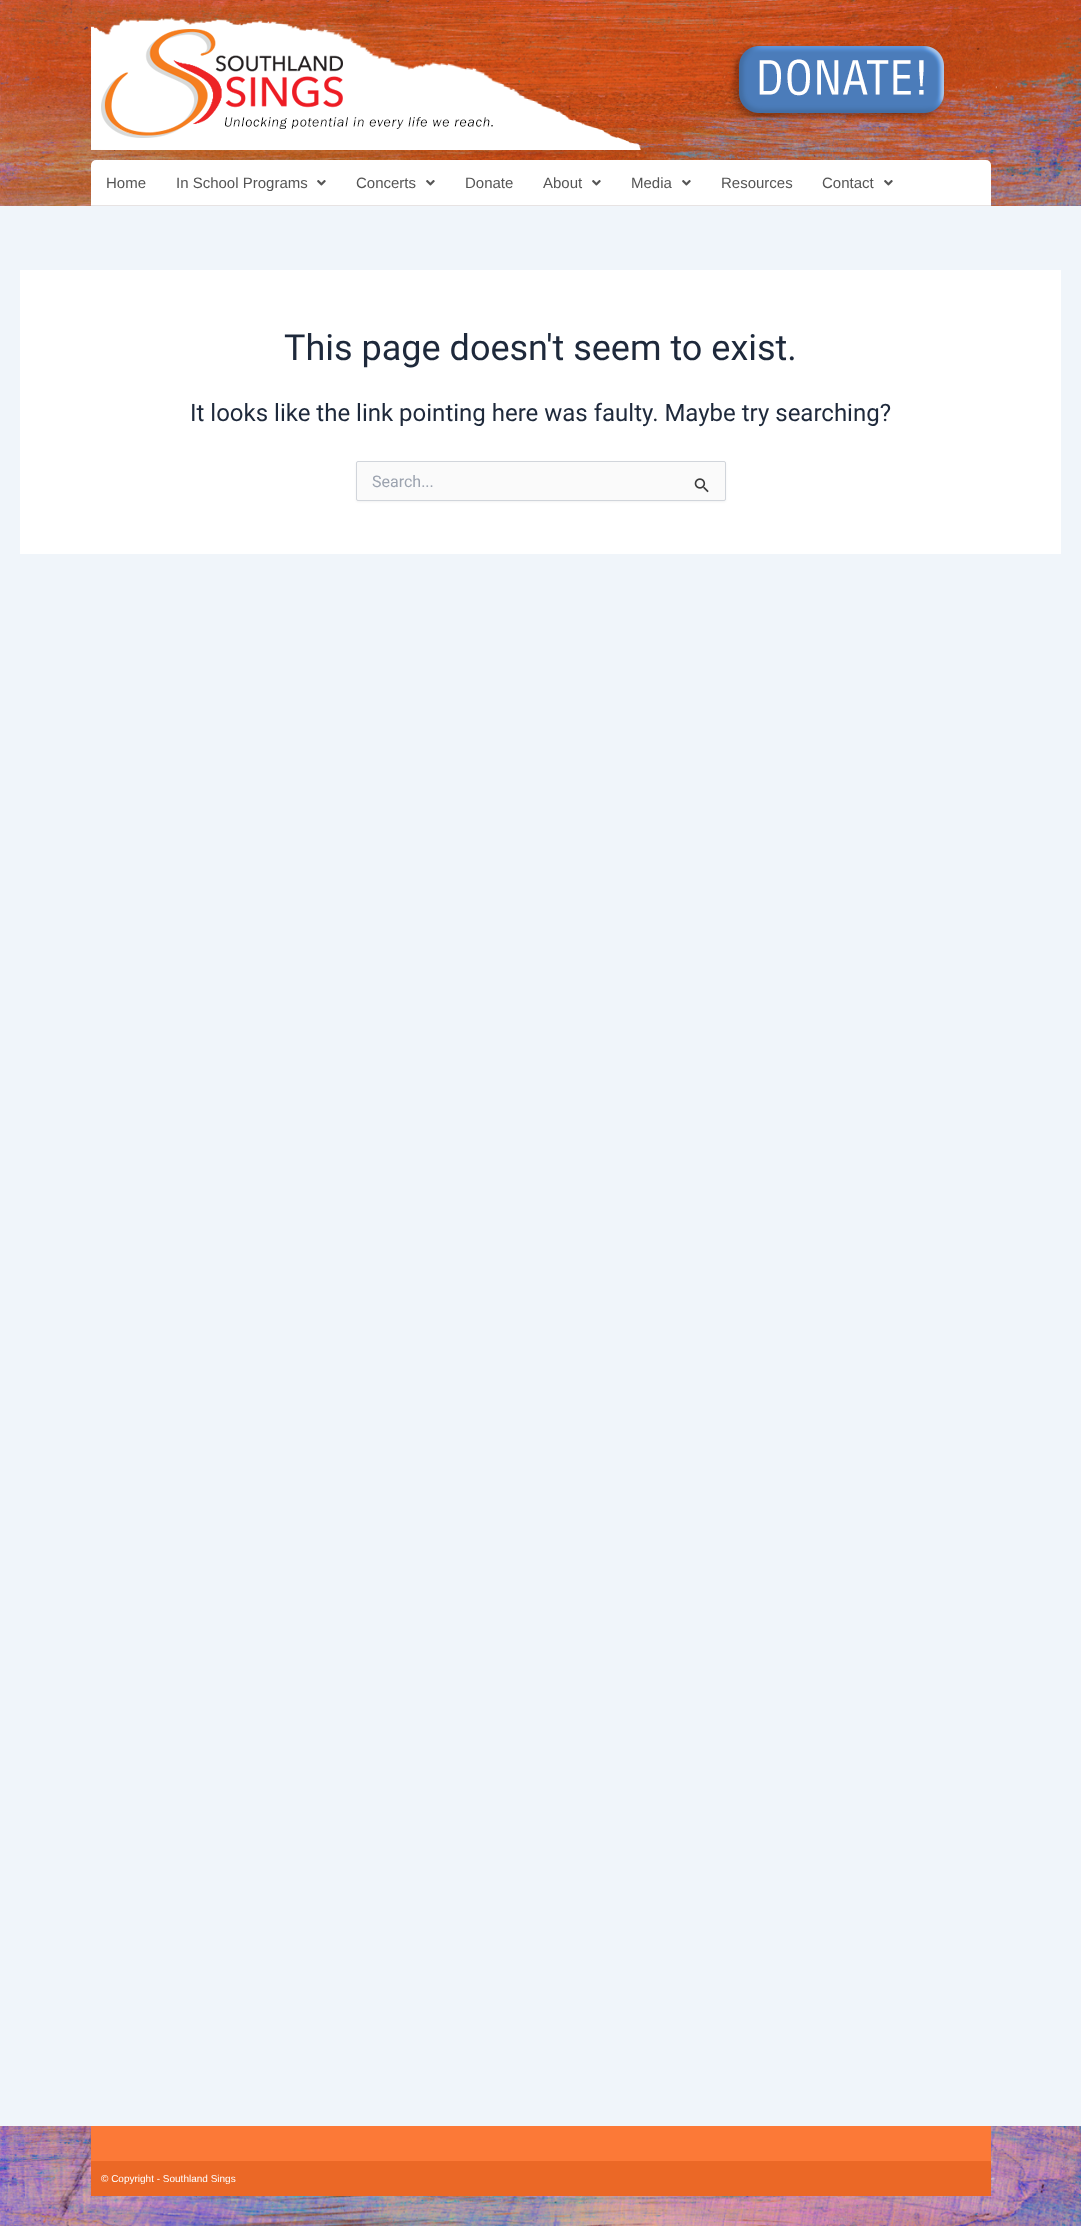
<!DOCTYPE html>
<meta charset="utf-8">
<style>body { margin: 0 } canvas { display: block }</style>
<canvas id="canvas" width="1081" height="2226"></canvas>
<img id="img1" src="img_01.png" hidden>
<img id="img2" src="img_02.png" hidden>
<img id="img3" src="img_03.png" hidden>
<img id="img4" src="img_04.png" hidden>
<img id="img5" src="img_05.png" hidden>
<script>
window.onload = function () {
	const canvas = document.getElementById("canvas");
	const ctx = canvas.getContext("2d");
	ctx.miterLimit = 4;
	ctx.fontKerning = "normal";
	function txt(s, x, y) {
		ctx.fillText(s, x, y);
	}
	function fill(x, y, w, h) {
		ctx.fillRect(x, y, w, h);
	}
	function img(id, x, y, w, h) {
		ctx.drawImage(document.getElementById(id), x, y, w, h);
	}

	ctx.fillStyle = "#F0F5FA";
	fill(0, 0, 1081, 2226);
	img("img1", 0, 0, 1081, 206);
	img("img2", 91, 17, 854, 133);
	ctx.fillStyle = "#FFFFFF";
	ctx.beginPath();
	ctx.roundRect(91, 160, 900, 46, [5, 5, 0, 0]);
	ctx.fill();
	ctx.fillStyle = "#E7E3E3";
	fill(91, 205, 900, 1);
	img("img3", 317, 180, 9, 6);
	img("img3", 426, 180, 9, 6);
	img("img3", 592, 180, 9, 6);
	img("img3", 682, 180, 9, 6);
	img("img3", 884, 180, 9, 6);
	ctx.fillStyle = "#FFFFFF";
	fill(20, 270, 1041, 284);
	ctx.fillStyle = "rgba(0, 0, 0, 0.05)";
	ctx.filter = "blur(1px)";
	ctx.beginPath();
	ctx.roundRect(356, 462, 370, 40, 2);
	ctx.fill();
	ctx.filter = "none";
	ctx.fillStyle = "#FAFAFA";
	ctx.beginPath();
	ctx.roundRect(356.5, 461.5, 369, 39, 1.5);
	ctx.fill();
	ctx.strokeStyle = "#D1D5DB";
	ctx.stroke();
	img("img4", 694, 478, 15, 15);
	img("img5", 0, 2126, 1081, 100);
	ctx.fillStyle = "#FC7937";
	fill(91, 2126, 900, 35);
	ctx.fillStyle = "#EB6826";
	fill(91, 2161, 900, 35);
	ctx.font = "15px Liberation Sans";
	ctx.fillStyle = "#555555";
	txt("Home", 106, 188);
	txt("In School Programs", 176, 188);
	txt("Concerts", 356, 188);
	txt("Donate", 465, 188);
	txt("About", 543, 188);
	txt("Media", 631, 188);
	txt("Resources", 721, 188);
	txt("Contact", 822, 188);
	ctx.font = "36px Roboto";
	ctx.fillStyle = "#1E293B";
	txt("This page doesn't seem to exist.", 284, 360);
	ctx.font = "24px Roboto";
	txt("It looks like the link pointing here was faulty. Maybe try searching?", 190, 421);
	ctx.font = "16px Roboto";
	ctx.fillStyle = "#9CA3AF";
	txt("Search...", 372, 487);
	ctx.font = "10px Liberation Sans";
	ctx.fillStyle = "#FFFFFF";
	txt("© Copyright - Southland Sings", 101, 2182);
};
</script>
